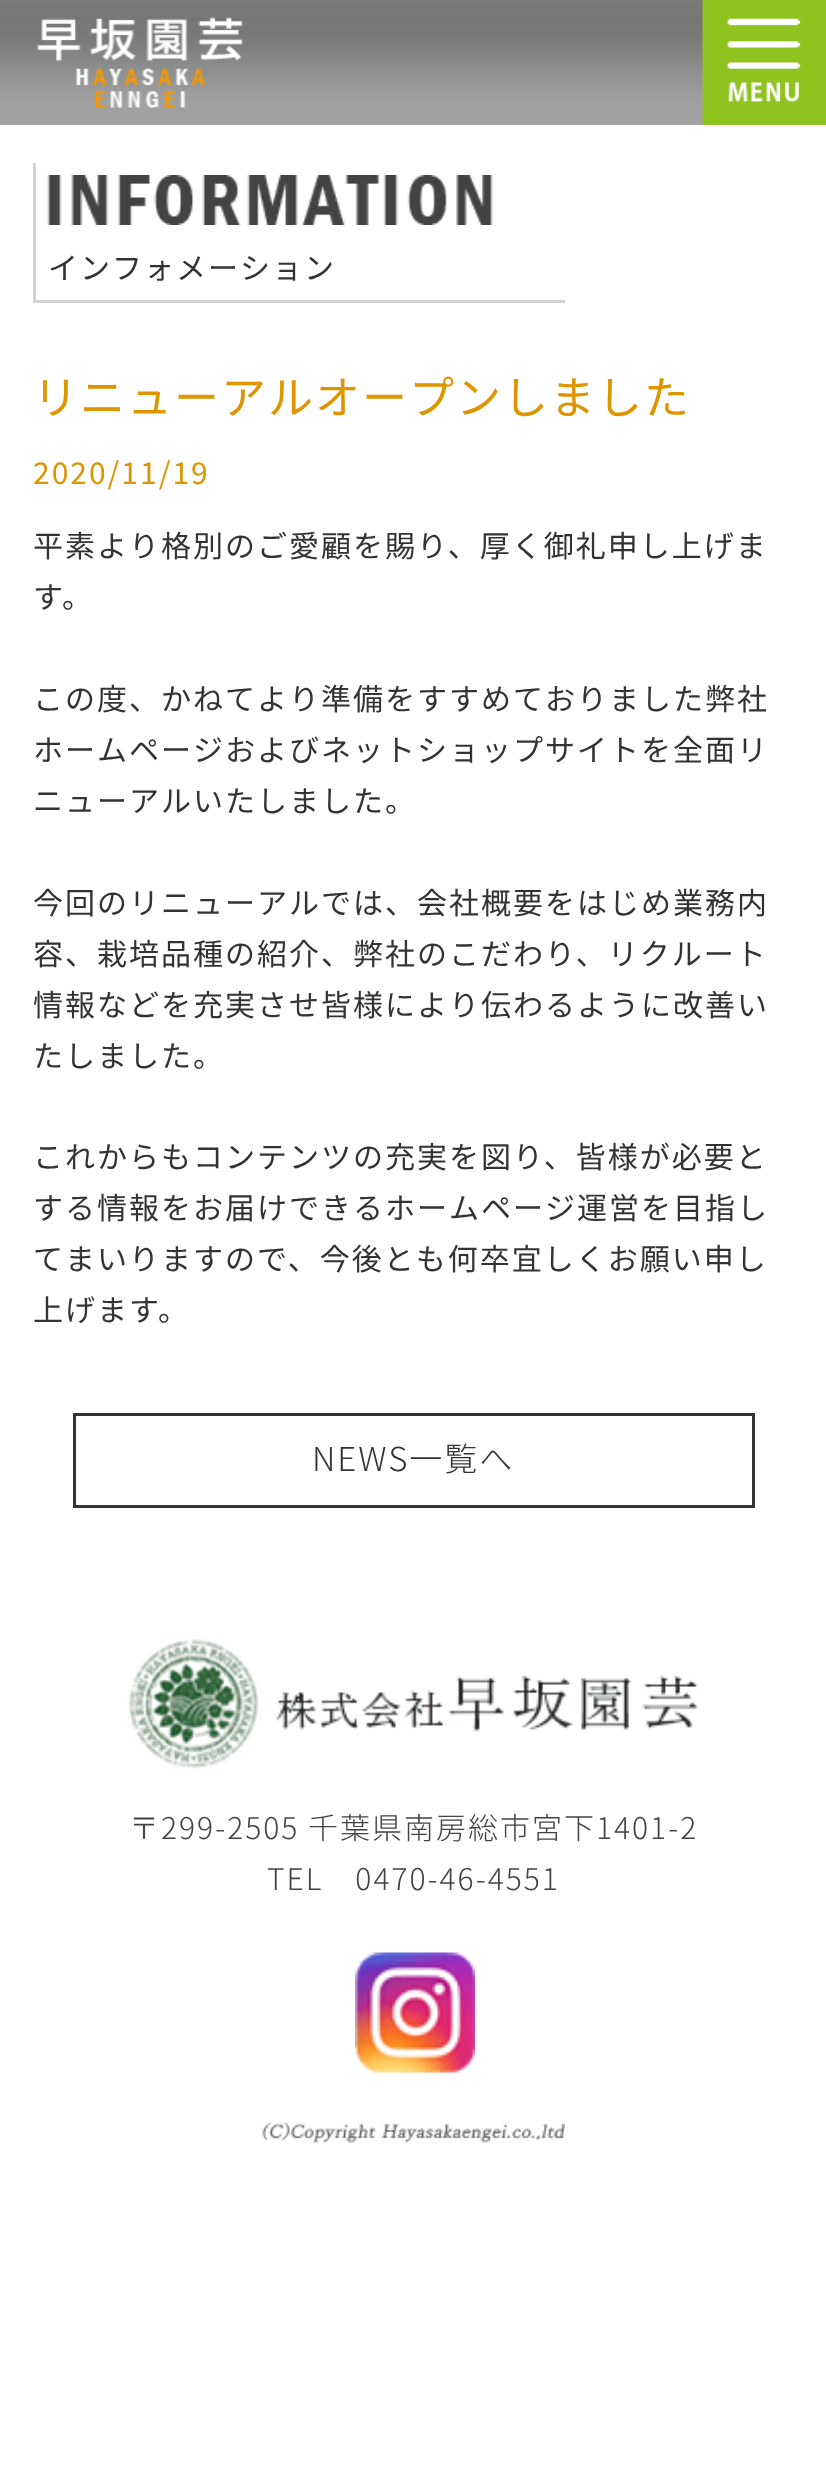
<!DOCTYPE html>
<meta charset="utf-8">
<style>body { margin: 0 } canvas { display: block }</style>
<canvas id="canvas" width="826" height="2475"></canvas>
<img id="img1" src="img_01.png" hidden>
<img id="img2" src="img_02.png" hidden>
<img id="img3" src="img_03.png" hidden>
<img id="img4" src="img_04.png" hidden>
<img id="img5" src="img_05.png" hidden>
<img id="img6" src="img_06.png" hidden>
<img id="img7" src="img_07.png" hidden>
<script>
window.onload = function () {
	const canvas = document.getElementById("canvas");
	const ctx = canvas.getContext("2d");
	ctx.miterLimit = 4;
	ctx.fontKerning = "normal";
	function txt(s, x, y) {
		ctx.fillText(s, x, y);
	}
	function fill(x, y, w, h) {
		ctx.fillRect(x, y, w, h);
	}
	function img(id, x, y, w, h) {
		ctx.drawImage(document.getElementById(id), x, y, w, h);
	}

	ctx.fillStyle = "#FFFFFF";
	fill(0, 0, 826, 2475);
	img("img1", 0, 0, 703, 125);
	img("img2", 37, 17, 206, 91);
	img("img3", 702, 0, 124, 125);
	ctx.fillStyle = "#D2D2D2";
	fill(33, 300, 532, 3);
	fill(33, 163, 3, 140);
	img("img4", 47, 175, 446, 50);
	ctx.strokeStyle = "#333333";
	ctx.lineWidth = 3;
	ctx.strokeRect(74.5, 1414.5, 679, 92);
	img("img5", 127, 1639, 572, 130);
	img("img6", 355, 1952, 120, 121);
	img("img7", 262, 2122, 303, 21);
	ctx.letterSpacing = "2px";
	ctx.font = "30px Noto Sans JP";
	ctx.fillStyle = "#333333";
	txt("インフォメーション", 48, 279);
	ctx.font = "45px Noto Sans JP";
	ctx.fillStyle = "#DE9500";
	txt("リニューアルオープンしました", 33, 414);
	ctx.font = "30px Noto Sans JP";
	txt("2020/11/19", 33, 484);
	ctx.fillStyle = "#333333";
	txt("平素より格別のご愛顧を賜り、厚く御礼申し上げま", 33, 557);
	txt("す。", 33, 608);
	txt("この度、かねてより準備をすすめておりました弊社", 33, 710);
	txt("ホームページおよびネットショップサイトを全面リ", 33, 761);
	txt("ニューアルいたしました。", 33, 812);
	txt("今回のリニューアルでは、会社概要をはじめ業務内", 33, 914);
	txt("容、栽培品種の紹介、弊社のこだわり、リクルート", 33, 965);
	txt("情報などを充実させ皆様により伝わるように改善い", 33, 1016);
	txt("たしました。", 33, 1067);
	txt("これからもコンテンツの充実を図り、皆様が必要と", 33, 1168);
	txt("する情報をお届けできるホームページ運営を目指し", 33, 1219);
	txt("てまいりますので、今後とも何卒宜しくお願い申し", 33, 1270);
	txt("上げます。", 33, 1321);
	ctx.font = "300 33px Noto Sans JP";
	txt("NEWS一覧へ", 312, 1471);
	ctx.font = "300 30px Noto Sans JP";
	ctx.fillStyle = "#434343";
	txt("〒299-2505 千葉県南房総市宮下1401-2", 129, 1839);
	txt("TEL　0470-46-4551", 267, 1890);
};
</script>
